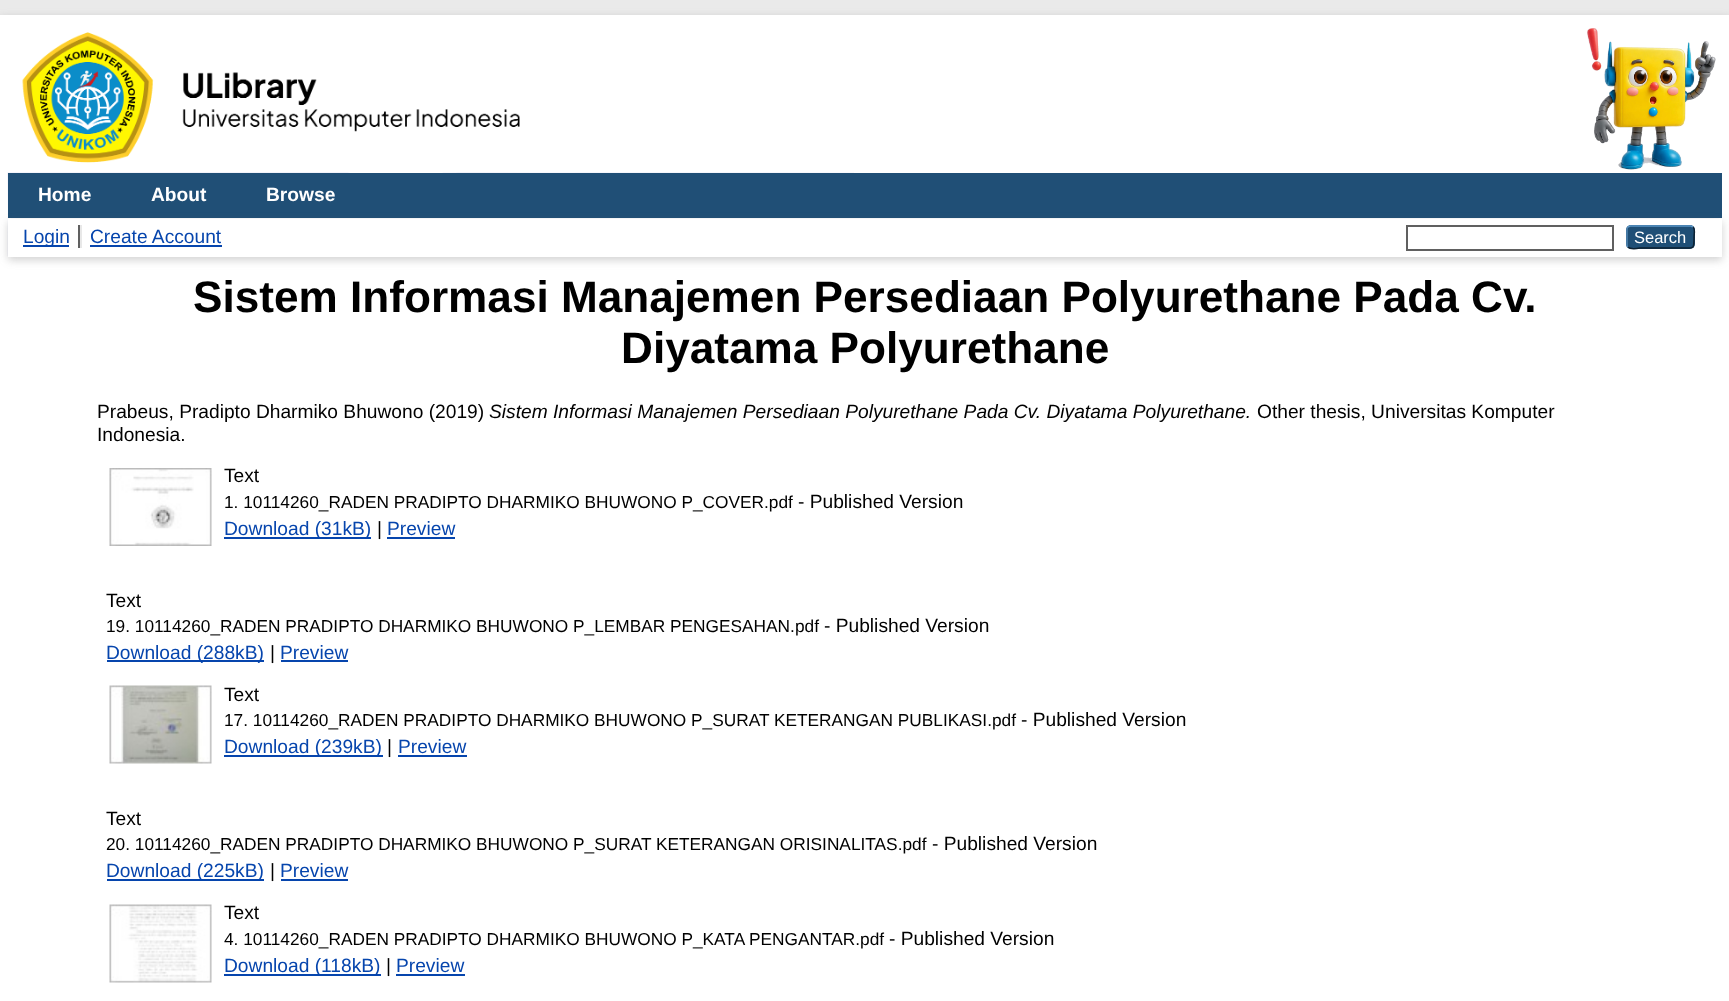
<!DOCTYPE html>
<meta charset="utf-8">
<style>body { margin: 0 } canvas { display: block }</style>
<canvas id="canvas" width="1729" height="1001"></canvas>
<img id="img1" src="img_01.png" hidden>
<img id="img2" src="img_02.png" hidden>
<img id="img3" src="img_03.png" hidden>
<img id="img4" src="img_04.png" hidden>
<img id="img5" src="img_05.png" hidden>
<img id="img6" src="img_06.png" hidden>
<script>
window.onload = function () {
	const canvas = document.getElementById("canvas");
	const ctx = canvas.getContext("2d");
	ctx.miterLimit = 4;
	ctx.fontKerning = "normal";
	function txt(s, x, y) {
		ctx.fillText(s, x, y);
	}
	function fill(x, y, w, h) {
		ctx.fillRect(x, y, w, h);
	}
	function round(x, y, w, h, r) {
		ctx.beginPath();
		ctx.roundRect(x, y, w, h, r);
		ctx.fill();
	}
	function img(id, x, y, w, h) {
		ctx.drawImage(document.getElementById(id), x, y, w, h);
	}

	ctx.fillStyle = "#EAEAEA";
	fill(0, 0, 1729, 1001);
	ctx.fillStyle = "rgba(100, 100, 100, 0.3)";
	ctx.filter = "blur(4.5px)";
	ctx.beginPath();
	ctx.rect(0, 18, 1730, 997);
	ctx.fill();
	ctx.filter = "none";
	ctx.fillStyle = "#FFFFFF";
	fill(0, 15, 1729, 986);
	img("img1", 22, 32, 498, 131);
	img("img2", 1587, 28, 129, 142);
	img("img3", 7, 172, 847, 84);
	ctx.fillStyle = "#204F76";
	fill(8, 173, 1714, 45);
	ctx.fillStyle = "#FFFFFF";
	fill(8, 218, 846, 1);
	ctx.fillStyle = "rgba(100, 100, 100, 0.3)";
	ctx.filter = "blur(4.5px)";
	ctx.beginPath();
	ctx.rect(8, 222, 1714, 38);
	ctx.fill();
	ctx.filter = "none";
	ctx.fillStyle = "#FFFFFF";
	fill(8, 219, 1714, 38);
	ctx.fillStyle = "#606060";
	fill(78, 225, 2, 23);
	ctx.fillStyle = "#0645AD";
	fill(23, 245, 46, 2);
	ctx.fillStyle = "#E8E8E8";
	fill(80, 225, 2, 23);
	ctx.fillStyle = "#0645AD";
	fill(90, 245, 132, 2);
	ctx.strokeStyle = "#606060";
	ctx.lineWidth = 2;
	ctx.strokeRect(1407, 226, 206, 24);
	ctx.fillStyle = "#1F4F76";
	round(1626, 225, 69, 24, 5);
	ctx.beginPath();
	ctx.moveTo(1628, 227);
	ctx.lineTo(1630, 226);
	ctx.lineTo(1691, 226);
	ctx.lineTo(1693, 227);
	ctx.strokeStyle = "#5B97C7";
	ctx.lineWidth = 1.5;
	ctx.stroke();
	ctx.beginPath();
	ctx.moveTo(1693, 227);
	ctx.bezierCurveTo(1695.5, 229, 1694, 234, 1694, 237);
	ctx.bezierCurveTo(1694, 250, 1694.5, 248, 1680.5, 248);
	ctx.lineTo(1640.5, 248);
	ctx.bezierCurveTo(1640, 248, 1630.5, 250, 1628, 247);
	ctx.strokeStyle = "#0D2131";
	ctx.stroke();
	ctx.beginPath();
	ctx.moveTo(1628, 247);
	ctx.bezierCurveTo(1627, 246.5, 1627, 245.5, 1627, 244.5);
	ctx.lineTo(1627, 229.5);
	ctx.bezierCurveTo(1627, 228.5, 1627, 227.5, 1628, 227);
	ctx.strokeStyle = "#5287B3";
	ctx.stroke();
	img("img4", 109, 468, 103, 78);
	ctx.fillStyle = "#0645AD";
	fill(224, 537, 147, 2);
	fill(387, 537, 68, 2);
	fill(107, 660, 157, 2);
	fill(281, 660, 67, 2);
	img("img5", 109, 685, 103, 79);
	fill(224, 755, 159, 2);
	fill(398, 755, 69, 2);
	fill(107, 879, 157, 2);
	fill(281, 879, 67, 2);
	img("img6", 109, 904, 103, 79);
	fill(224, 974, 157, 2);
	fill(396, 974, 69, 2);
	ctx.font = "bold 19.2px Liberation Sans";
	ctx.fillStyle = "#FFFFFF";
	txt("Home", 38, 201);
	txt("About", 151, 201);
	txt("Browse", 266, 201);
	ctx.font = "19.2px Liberation Sans";
	ctx.fillStyle = "#0645AD";
	txt("Login", 23, 243);
	txt("Create Account", 90, 243);
	ctx.font = "16.5px Liberation Sans";
	ctx.fillStyle = "#FFFFFF";
	txt("Search", 1634, 243);
	ctx.font = "bold 44.15px Liberation Sans";
	ctx.fillStyle = "#000000";
	txt("Sistem Informasi Manajemen Persediaan Polyurethane Pada Cv.", 193, 312);
	txt("Diyatama Polyurethane", 621, 363);
	ctx.font = "19.2px Liberation Sans";
	txt("Prabeus, Pradipto Dharmiko Bhuwono (2019)", 97, 418);
	ctx.font = "italic 19.2px Liberation Sans";
	txt("Sistem Informasi Manajemen Persediaan Polyurethane Pada Cv. Diyatama Polyurethane.", 489, 418);
	ctx.font = "19.2px Liberation Sans";
	txt("Other thesis, Universitas Komputer", 1257, 418);
	txt("Indonesia.", 97, 441);
	txt("Text", 224, 482);
	ctx.font = "17.3px Liberation Sans";
	txt("1. 10114260_RADEN PRADIPTO DHARMIKO BHUWONO P_COVER.pdf", 224, 508);
	ctx.font = "19.2px Liberation Sans";
	txt("- Published Version", 798, 508);
	ctx.fillStyle = "#0645AD";
	txt("Download (31kB)", 224, 535);
	ctx.fillStyle = "#000000";
	txt("|", 377, 535);
	ctx.fillStyle = "#0645AD";
	txt("Preview", 387, 535);
	ctx.fillStyle = "#000000";
	txt("Text", 106, 607);
	ctx.font = "17.3px Liberation Sans";
	txt("19. 10114260_RADEN PRADIPTO DHARMIKO BHUWONO P_LEMBAR PENGESAHAN.pdf", 106, 632);
	ctx.font = "19.2px Liberation Sans";
	txt("- Published Version", 824, 632);
	ctx.fillStyle = "#0645AD";
	txt("Download (288kB)", 106, 659);
	ctx.fillStyle = "#000000";
	txt("|", 270, 659);
	ctx.fillStyle = "#0645AD";
	txt("Preview", 280, 659);
	ctx.fillStyle = "#000000";
	txt("Text", 224, 701);
	ctx.font = "17.3px Liberation Sans";
	txt("17. 10114260_RADEN PRADIPTO DHARMIKO BHUWONO P_SURAT KETERANGAN PUBLIKASI.pdf", 224, 726);
	ctx.font = "19.2px Liberation Sans";
	txt("- Published Version", 1021, 726);
	ctx.fillStyle = "#0645AD";
	txt("Download (239kB)", 224, 753);
	ctx.fillStyle = "#000000";
	txt("|", 387, 753);
	ctx.fillStyle = "#0645AD";
	txt("Preview", 398, 753);
	ctx.fillStyle = "#000000";
	txt("Text", 106, 825);
	ctx.font = "17.3px Liberation Sans";
	txt("20. 10114260_RADEN PRADIPTO DHARMIKO BHUWONO P_SURAT KETERANGAN ORISINALITAS.pdf", 106, 850);
	ctx.font = "19.2px Liberation Sans";
	txt("- Published Version", 932, 850);
	ctx.fillStyle = "#0645AD";
	txt("Download (225kB)", 106, 877);
	ctx.fillStyle = "#000000";
	txt("|", 270, 877);
	ctx.fillStyle = "#0645AD";
	txt("Preview", 280, 877);
	ctx.fillStyle = "#000000";
	txt("Text", 224, 919);
	ctx.font = "17.3px Liberation Sans";
	txt("4. 10114260_RADEN PRADIPTO DHARMIKO BHUWONO P_KATA PENGANTAR.pdf", 224, 945);
	ctx.font = "19.2px Liberation Sans";
	txt("- Published Version", 889, 945);
	ctx.fillStyle = "#0645AD";
	txt("Download (118kB)", 224, 972);
	ctx.fillStyle = "#000000";
	txt("|", 386, 972);
	ctx.fillStyle = "#0645AD";
	txt("Preview", 396, 972);
};
</script>
